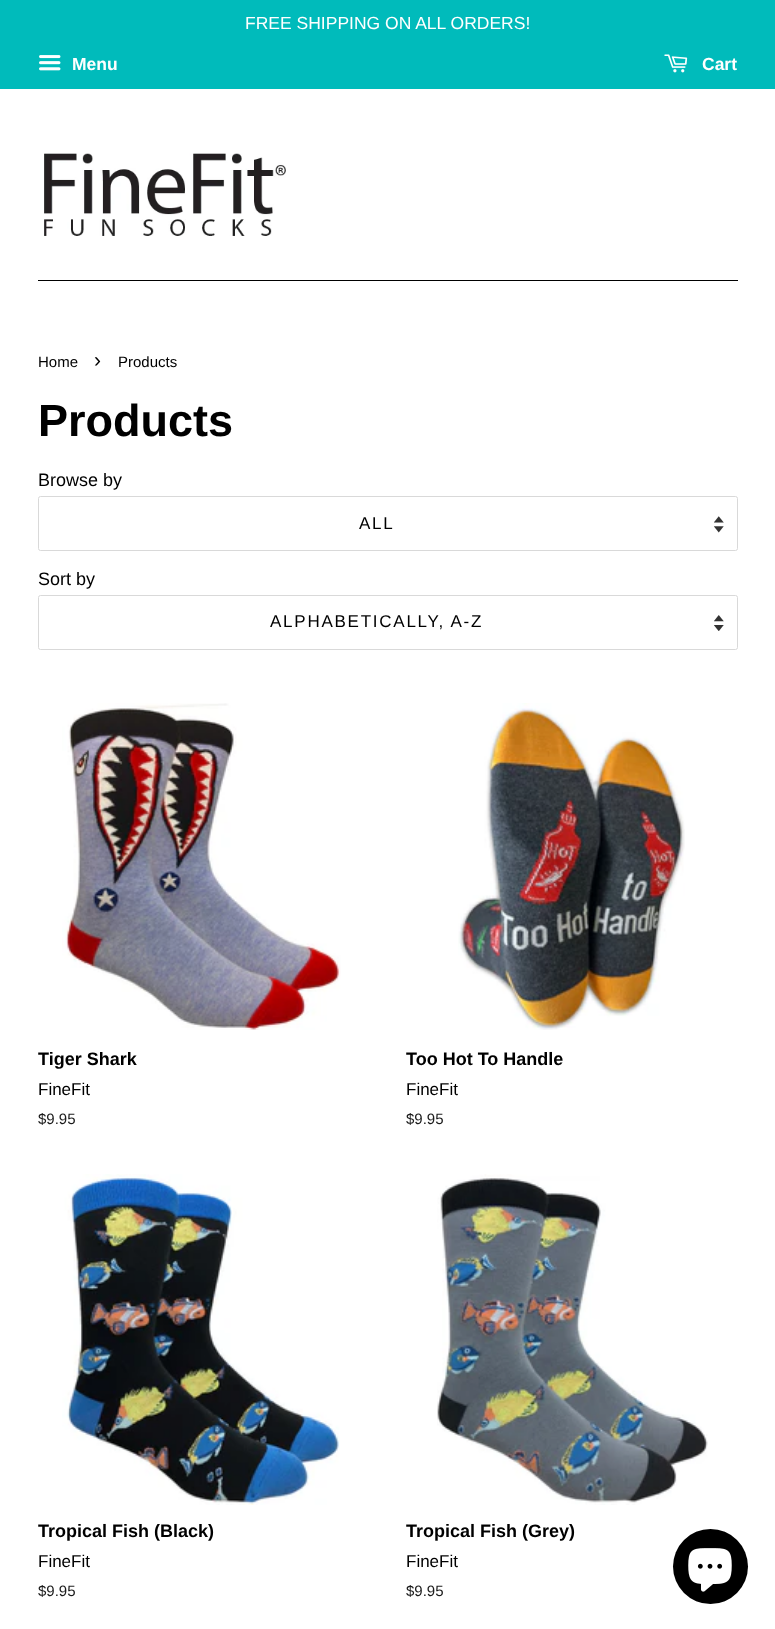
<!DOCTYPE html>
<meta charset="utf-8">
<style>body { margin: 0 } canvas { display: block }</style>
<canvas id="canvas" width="775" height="1629"></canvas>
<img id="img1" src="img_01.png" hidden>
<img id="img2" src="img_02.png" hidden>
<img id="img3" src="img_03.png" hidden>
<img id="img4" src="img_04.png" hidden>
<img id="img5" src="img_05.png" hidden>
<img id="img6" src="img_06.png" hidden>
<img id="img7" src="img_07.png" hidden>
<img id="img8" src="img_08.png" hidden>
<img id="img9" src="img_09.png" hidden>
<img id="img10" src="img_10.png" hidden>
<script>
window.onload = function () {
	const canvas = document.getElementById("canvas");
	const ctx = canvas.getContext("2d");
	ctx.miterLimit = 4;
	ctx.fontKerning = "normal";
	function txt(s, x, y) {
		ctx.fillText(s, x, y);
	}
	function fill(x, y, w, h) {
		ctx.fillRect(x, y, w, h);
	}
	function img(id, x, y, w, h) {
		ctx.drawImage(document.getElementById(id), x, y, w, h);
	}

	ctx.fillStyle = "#FFFFFF";
	fill(0, 0, 775, 1629);
	ctx.fillStyle = "#00BBBB";
	fill(0, 0, 775, 89);
	img("img1", 39, 55, 22, 16);
	img("img2", 664, 54, 24, 19);
	ctx.fillStyle = "#000000";
	fill(38, 280, 700, 1);
	img("img3", 44, 153, 242, 83);
	img("img4", 714, 516, 10, 17);
	ctx.beginPath();
	ctx.roundRect(38.5, 496.5, 699, 54, 2);
	ctx.strokeStyle = "#D9D9D9";
	ctx.stroke();
	img("img5", 714, 615, 10, 16);
	ctx.beginPath();
	ctx.roundRect(38.5, 595.5, 699, 54, 2);
	ctx.stroke();
	img("img6", 62, 703, 279, 327);
	img("img7", 458, 703, 227, 327);
	img("img8", 62, 1174, 278, 331);
	img("img9", 437, 1174, 271, 331);
	ctx.beginPath();
	ctx.arc(710.5, 1566.5, 37.5, 0, Math.PI * 2);
	ctx.fill();
	img("img10", 688, 1548, 44, 44);
	ctx.font = "17.5px Liberation Sans";
	ctx.fillStyle = "#FFFFFF";
	txt("FREE SHIPPING ON ALL ORDERS!", 245, 29);
	ctx.font = "bold 17.5px Liberation Sans";
	txt("Menu", 72, 70);
	txt("Cart", 702, 70);
	ctx.font = "15px Liberation Sans";
	ctx.fillStyle = "#000000";
	txt("Home", 38, 367);
	ctx.font = "21px Liberation Sans";
	txt("›", 94, 367);
	ctx.font = "15px Liberation Sans";
	txt("Products", 118, 367);
	ctx.font = "bold 45px Liberation Sans";
	txt("Products", 38, 436);
	ctx.font = "18px Liberation Sans";
	txt("Browse by", 38, 486);
	ctx.letterSpacing = "1.75px";
	ctx.font = "17px Liberation Sans";
	txt("ALL", 359, 529);
	ctx.letterSpacing = "0px";
	ctx.font = "18px Liberation Sans";
	txt("Sort by", 38, 585);
	ctx.letterSpacing = "1.75px";
	ctx.font = "17px Liberation Sans";
	txt("ALPHABETICALLY, A-Z", 270, 627);
	ctx.letterSpacing = "0px";
	ctx.font = "bold 18px Liberation Sans";
	txt("Tiger Shark", 38, 1065);
	ctx.font = "17px Liberation Sans";
	txt("FineFit", 38, 1095);
	ctx.font = "15px Liberation Sans";
	ctx.fillStyle = "#1A1A1A";
	txt("$9.95", 38, 1124);
	ctx.font = "bold 18px Liberation Sans";
	ctx.fillStyle = "#000000";
	txt("Too Hot To Handle", 406, 1065);
	ctx.font = "17px Liberation Sans";
	txt("FineFit", 406, 1095);
	ctx.font = "15px Liberation Sans";
	ctx.fillStyle = "#1A1A1A";
	txt("$9.95", 406, 1124);
	ctx.font = "bold 18px Liberation Sans";
	ctx.fillStyle = "#000000";
	txt("Tropical Fish (Black)", 38, 1537);
	ctx.font = "17px Liberation Sans";
	txt("FineFit", 38, 1567);
	ctx.font = "15px Liberation Sans";
	ctx.fillStyle = "#1A1A1A";
	txt("$9.95", 38, 1596);
	ctx.font = "bold 18px Liberation Sans";
	ctx.fillStyle = "#000000";
	txt("Tropical Fish (Grey)", 406, 1537);
	ctx.font = "17px Liberation Sans";
	txt("FineFit", 406, 1567);
	ctx.font = "15px Liberation Sans";
	ctx.fillStyle = "#1A1A1A";
	txt("$9.95", 406, 1596);
};
</script>
